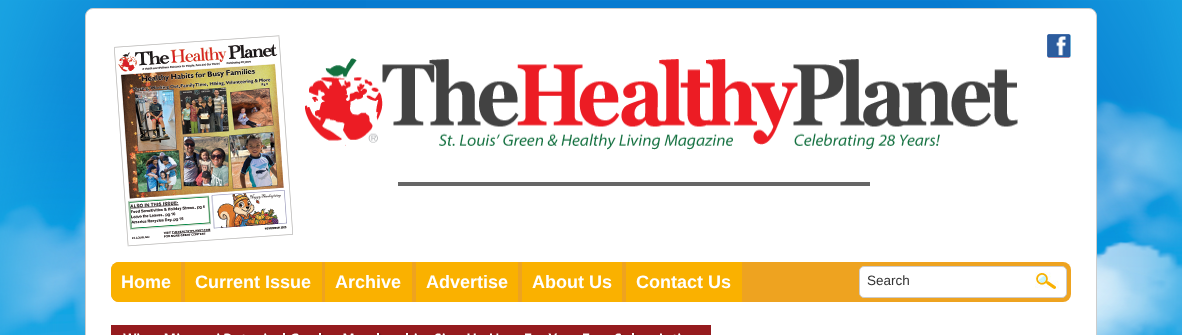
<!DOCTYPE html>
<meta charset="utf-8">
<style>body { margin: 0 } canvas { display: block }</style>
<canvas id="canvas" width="1182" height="335"></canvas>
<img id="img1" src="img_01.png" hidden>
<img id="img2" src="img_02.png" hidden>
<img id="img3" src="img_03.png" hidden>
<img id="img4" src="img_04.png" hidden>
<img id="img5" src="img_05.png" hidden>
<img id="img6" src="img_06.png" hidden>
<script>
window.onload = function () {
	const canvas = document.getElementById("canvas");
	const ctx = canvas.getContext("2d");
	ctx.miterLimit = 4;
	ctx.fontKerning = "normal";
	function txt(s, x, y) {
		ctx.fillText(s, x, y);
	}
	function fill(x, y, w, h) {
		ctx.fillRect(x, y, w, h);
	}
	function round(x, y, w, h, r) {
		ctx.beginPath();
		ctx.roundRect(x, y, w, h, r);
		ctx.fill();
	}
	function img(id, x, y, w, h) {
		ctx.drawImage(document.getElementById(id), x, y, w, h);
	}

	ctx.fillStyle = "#1BA7E4";
	fill(0, 0, 1182, 335);
	img("img1", 0, 0, 1182, 335);
	ctx.fillStyle = "#FFFFFF";
	ctx.beginPath();
	ctx.roundRect(85.5, 8.5, 1011, 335, 7.5);
	ctx.fill();
	ctx.strokeStyle = "#CCCCCC";
	ctx.stroke();
	img("img2", 114, 35, 179, 212);
	img("img3", 305, 58, 713, 92);
	ctx.fillStyle = "#666666";
	fill(398, 182, 472, 4);
	img("img4", 1047, 34, 24, 24);
	ctx.fillStyle = "#EEA320";
	round(111, 262, 960, 40, 8);
	ctx.fillStyle = "#FAB100";
	ctx.beginPath();
	ctx.roundRect(111, 262, 70, 40, [8, 0, 0, 8]);
	ctx.fill();
	fill(185, 262, 137, 40);
	fill(325, 262, 87, 40);
	fill(416, 262, 102, 40);
	fill(522, 262, 100, 40);
	fill(626, 262, 116, 40);
	ctx.fillStyle = "#FFFFFF";
	ctx.beginPath();
	ctx.roundRect(859.5, 266.5, 207, 31, 4.5);
	ctx.fill();
	ctx.stroke();
	img("img5", 1035, 272, 24, 17);
	img("img6", 111, 325, 600, 10);
	ctx.font = "bold 18px Liberation Sans";
	txt("Home", 121, 288);
	txt("Current Issue", 195, 288);
	txt("Archive", 335, 288);
	txt("Advertise", 426, 288);
	txt("About Us", 532, 288);
	txt("Contact Us", 636, 288);
	ctx.font = "13.5px Liberation Sans";
	ctx.fillStyle = "#333333";
	txt("Search", 867, 285);
};
</script>
